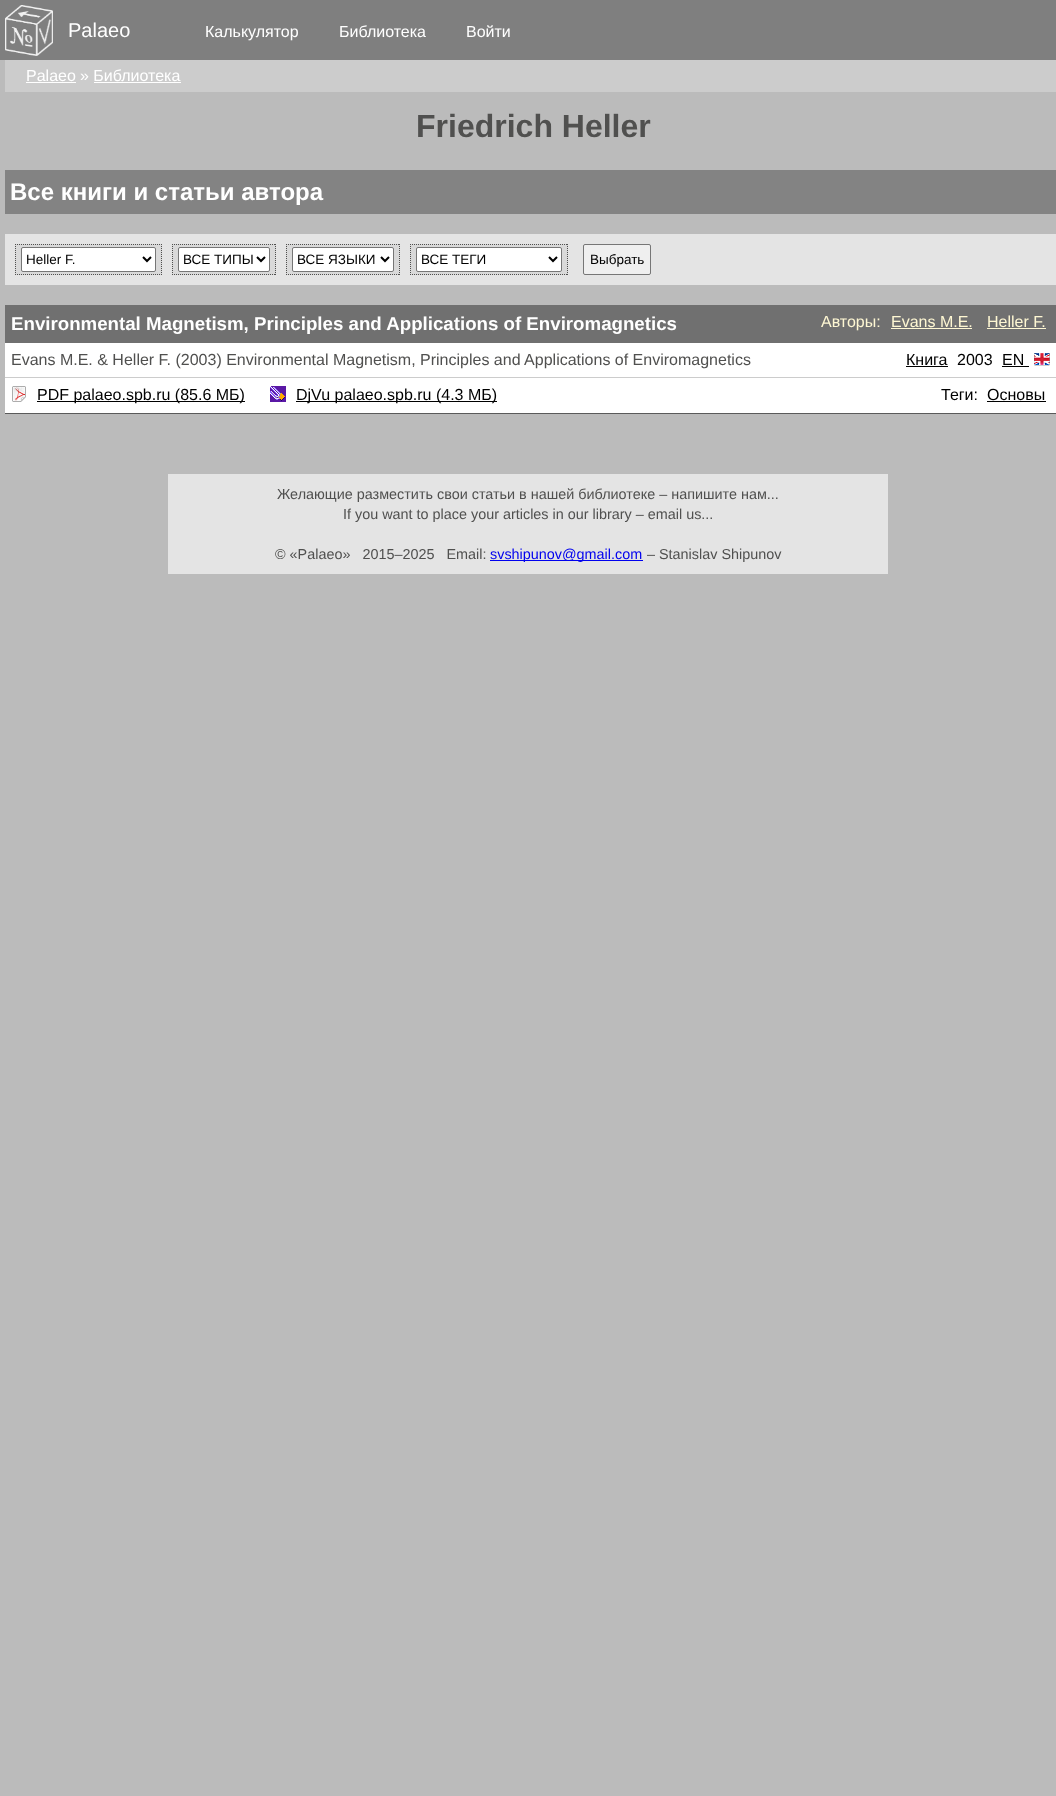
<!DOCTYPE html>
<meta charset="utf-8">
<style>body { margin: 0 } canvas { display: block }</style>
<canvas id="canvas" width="1056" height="1796"></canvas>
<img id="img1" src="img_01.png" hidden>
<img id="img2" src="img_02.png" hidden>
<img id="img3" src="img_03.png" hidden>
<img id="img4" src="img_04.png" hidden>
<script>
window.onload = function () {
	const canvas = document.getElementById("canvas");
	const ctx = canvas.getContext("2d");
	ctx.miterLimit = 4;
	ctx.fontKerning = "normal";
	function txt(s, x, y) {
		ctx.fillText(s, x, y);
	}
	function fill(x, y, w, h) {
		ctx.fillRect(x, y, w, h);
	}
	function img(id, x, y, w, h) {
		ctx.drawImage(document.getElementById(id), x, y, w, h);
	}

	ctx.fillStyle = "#BBBBBB";
	fill(0, 0, 1056, 1796);
	ctx.fillStyle = "#7F7F7F";
	fill(0, 0, 1056, 60);
	img("img1", 5, 5, 48, 51);
	ctx.fillStyle = "#CCCCCC";
	fill(5, 60, 1051, 32);
	ctx.fillStyle = "#FFFFFF";
	fill(26, 82, 50, 1);
	fill(94, 82, 87, 1);
	ctx.fillStyle = "#838383";
	fill(5, 170, 1051, 44);
	ctx.fillStyle = "#E4E4E4";
	fill(5, 234, 1051, 51);
	ctx.fillStyle = "#D9D9D9";
	fill(15, 244, 147, 31);
	ctx.beginPath();
	ctx.moveTo(15, 244.5);
	ctx.lineTo(162, 244.5);
	ctx.strokeStyle = "#50504F";
	ctx.setLineDash([1, 1]);
	ctx.stroke();
	ctx.beginPath();
	ctx.moveTo(161.5, 244);
	ctx.lineTo(161.5, 275);
	ctx.stroke();
	ctx.beginPath();
	ctx.moveTo(15, 274.5);
	ctx.lineTo(162, 274.5);
	ctx.stroke();
	ctx.beginPath();
	ctx.moveTo(15.5, 244);
	ctx.lineTo(15.5, 275);
	ctx.stroke();
	ctx.fillStyle = "#FFFFFF";
	ctx.beginPath();
	ctx.roundRect(21.5, 247.5, 134, 24, 1.5);
	ctx.fill();
	ctx.strokeStyle = "#767676";
	ctx.setLineDash([]);
	ctx.stroke();
	ctx.beginPath();
	ctx.moveTo(143, 257);
	ctx.lineTo(147, 261);
	ctx.lineTo(151, 257);
	ctx.strokeStyle = "#000000";
	ctx.lineWidth = 2;
	ctx.stroke();
	ctx.fillStyle = "#D9D9D9";
	fill(172, 244, 104, 31);
	ctx.beginPath();
	ctx.moveTo(172, 244.5);
	ctx.lineTo(276, 244.5);
	ctx.strokeStyle = "#50504F";
	ctx.lineWidth = 1;
	ctx.setLineDash([1, 1]);
	ctx.stroke();
	ctx.beginPath();
	ctx.moveTo(275.5, 244);
	ctx.lineTo(275.5, 275);
	ctx.stroke();
	ctx.beginPath();
	ctx.moveTo(172, 274.5);
	ctx.lineTo(276, 274.5);
	ctx.stroke();
	ctx.beginPath();
	ctx.moveTo(172.5, 244);
	ctx.lineTo(172.5, 275);
	ctx.stroke();
	ctx.fillStyle = "#FFFFFF";
	ctx.beginPath();
	ctx.roundRect(178.5, 247.5, 91, 24, 1.5);
	ctx.fill();
	ctx.strokeStyle = "#767676";
	ctx.setLineDash([]);
	ctx.stroke();
	ctx.beginPath();
	ctx.moveTo(257, 257);
	ctx.lineTo(261, 261);
	ctx.lineTo(265, 257);
	ctx.strokeStyle = "#000000";
	ctx.lineWidth = 2;
	ctx.stroke();
	ctx.fillStyle = "#D9D9D9";
	fill(286, 244, 114, 31);
	ctx.beginPath();
	ctx.moveTo(286, 244.5);
	ctx.lineTo(400, 244.5);
	ctx.strokeStyle = "#50504F";
	ctx.lineWidth = 1;
	ctx.setLineDash([1, 1]);
	ctx.stroke();
	ctx.beginPath();
	ctx.moveTo(399.5, 244);
	ctx.lineTo(399.5, 275);
	ctx.stroke();
	ctx.beginPath();
	ctx.moveTo(286, 274.5);
	ctx.lineTo(400, 274.5);
	ctx.stroke();
	ctx.beginPath();
	ctx.moveTo(286.5, 244);
	ctx.lineTo(286.5, 275);
	ctx.stroke();
	ctx.fillStyle = "#FFFFFF";
	ctx.beginPath();
	ctx.roundRect(292.5, 247.5, 101, 24, 1.5);
	ctx.fill();
	ctx.strokeStyle = "#767676";
	ctx.setLineDash([]);
	ctx.stroke();
	ctx.beginPath();
	ctx.moveTo(381, 257);
	ctx.lineTo(385, 261);
	ctx.lineTo(389, 257);
	ctx.strokeStyle = "#000000";
	ctx.lineWidth = 2;
	ctx.stroke();
	ctx.fillStyle = "#D9D9D9";
	fill(410, 244, 158, 31);
	ctx.beginPath();
	ctx.moveTo(410, 244.5);
	ctx.lineTo(568, 244.5);
	ctx.strokeStyle = "#50504F";
	ctx.lineWidth = 1;
	ctx.setLineDash([1, 1]);
	ctx.stroke();
	ctx.beginPath();
	ctx.moveTo(567.5, 244);
	ctx.lineTo(567.5, 275);
	ctx.stroke();
	ctx.beginPath();
	ctx.moveTo(410, 274.5);
	ctx.lineTo(568, 274.5);
	ctx.stroke();
	ctx.beginPath();
	ctx.moveTo(410.5, 244);
	ctx.lineTo(410.5, 275);
	ctx.stroke();
	ctx.fillStyle = "#FFFFFF";
	ctx.beginPath();
	ctx.roundRect(416.5, 247.5, 145, 24, 1.5);
	ctx.fill();
	ctx.strokeStyle = "#767676";
	ctx.setLineDash([]);
	ctx.stroke();
	ctx.beginPath();
	ctx.moveTo(549, 257);
	ctx.lineTo(553, 261);
	ctx.lineTo(557, 257);
	ctx.strokeStyle = "#000000";
	ctx.lineWidth = 2;
	ctx.stroke();
	ctx.fillStyle = "#EFEFEF";
	ctx.beginPath();
	ctx.roundRect(583.5, 244.5, 67, 30, 1.5);
	ctx.fill();
	ctx.strokeStyle = "#767676";
	ctx.lineWidth = 1;
	ctx.stroke();
	ctx.fillStyle = "#707070";
	fill(5, 305, 1051, 38);
	ctx.fillStyle = "#FEF7D3";
	fill(891, 328, 81, 1);
	fill(987, 328, 59, 1);
	ctx.fillStyle = "#FFFFFF";
	fill(5, 343, 1051, 34);
	ctx.fillStyle = "#CCCCCC";
	fill(5, 377, 1051, 1);
	ctx.fillStyle = "#000000";
	fill(906, 366, 42, 1);
	fill(1002, 366, 27, 1);
	img("img2", 1034, 353, 16, 13);
	ctx.fillStyle = "#FFFFFF";
	fill(5, 378, 1051, 35);
	ctx.fillStyle = "#5A5A5A";
	fill(5, 413, 1051, 1);
	img("img3", 12, 386, 14, 16);
	ctx.fillStyle = "#000000";
	fill(37, 401, 208, 1);
	img("img4", 270, 386, 16, 16);
	fill(296, 401, 201, 1);
	fill(987, 401, 59, 1);
	ctx.fillStyle = "#E4E4E4";
	fill(168, 474, 720, 100);
	ctx.fillStyle = "#0000EE";
	fill(490, 560, 153, 1);
	ctx.font = "20px Liberation Sans";
	ctx.fillStyle = "#FFFFFF";
	txt("Palaeo", 68, 37);
	ctx.font = "16px Liberation Sans";
	txt("Калькулятор", 205, 37);
	txt("Библиотека", 339, 37);
	txt("Войти", 466, 37);
	txt("Palaeo", 26, 81);
	txt("» Библиотека", 80, 81);
	ctx.font = "bold 32px Liberation Sans";
	ctx.fillStyle = "#50504F";
	txt("Friedrich Heller", 416, 137);
	ctx.font = "bold 24px Liberation Sans";
	ctx.fillStyle = "#FFFFFF";
	txt("Все книги и статьи автора", 10, 200);
	ctx.font = "13.5px Liberation Sans";
	ctx.fillStyle = "#000000";
	txt("Heller F.", 26, 264);
	txt("ВСЕ ТИПЫ", 183, 264);
	txt("ВСЕ ЯЗЫКИ", 297, 264);
	txt("ВСЕ ТЕГИ", 421, 264);
	txt("Выбрать", 590, 264);
	ctx.font = "bold 18.7px Liberation Sans";
	ctx.fillStyle = "#FFFFFF";
	txt("Environmental Magnetism, Principles and Applications of Enviromagnetics", 11, 330);
	ctx.font = "16px Liberation Sans";
	ctx.fillStyle = "#FEF7D3";
	txt("Авторы:", 821, 327);
	txt("Evans M.E.", 891, 327);
	txt("Heller F.", 987, 327);
	ctx.fillStyle = "#50504F";
	txt("Evans M.E. & Heller F. (2003) Environmental Magnetism, Principles and Applications of Enviromagnetics", 11, 365);
	ctx.fillStyle = "#000000";
	txt("Книга", 906, 365);
	txt("2003", 957, 365);
	txt("EN", 1002, 365);
	txt("PDF palaeo.spb.ru (85.6 МБ)", 37, 400);
	txt("DjVu palaeo.spb.ru (4.3 МБ)", 296, 400);
	txt("Теги:", 941, 400);
	txt("Основы", 987, 400);
	ctx.font = "14.4px Liberation Sans";
	ctx.fillStyle = "#50504F";
	txt("Желающие разместить свои статьи в нашей библиотеке – напишите нам...", 277, 499);
	txt("If you want to place your articles in our library – email us...", 343, 519);
	txt("© «Palaeo»   2015–2025   Email:", 275, 559);
	ctx.fillStyle = "#0000EE";
	txt("svshipunov@gmail.com", 490, 559);
	ctx.fillStyle = "#50504F";
	txt("– Stanislav Shipunov", 647, 559);
};
</script>
